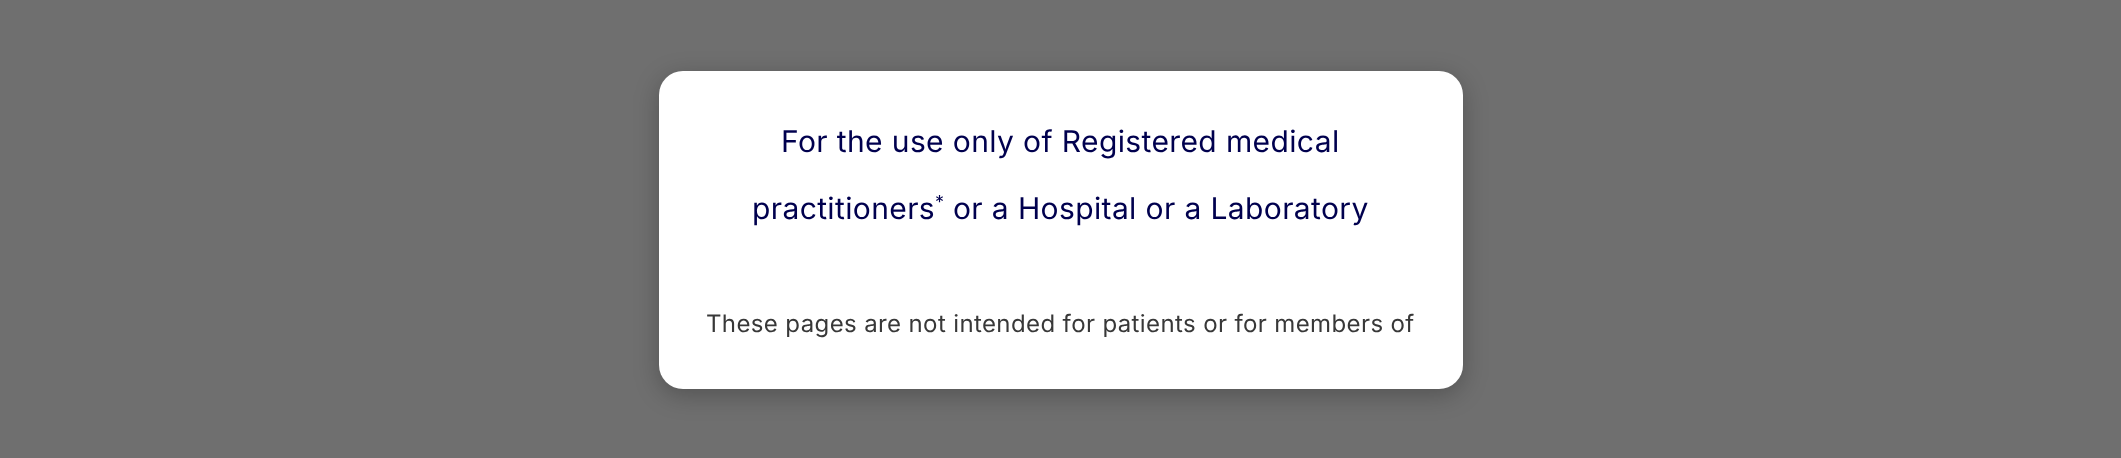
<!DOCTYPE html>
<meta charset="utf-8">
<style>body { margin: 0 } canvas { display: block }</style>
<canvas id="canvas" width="2121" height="458"></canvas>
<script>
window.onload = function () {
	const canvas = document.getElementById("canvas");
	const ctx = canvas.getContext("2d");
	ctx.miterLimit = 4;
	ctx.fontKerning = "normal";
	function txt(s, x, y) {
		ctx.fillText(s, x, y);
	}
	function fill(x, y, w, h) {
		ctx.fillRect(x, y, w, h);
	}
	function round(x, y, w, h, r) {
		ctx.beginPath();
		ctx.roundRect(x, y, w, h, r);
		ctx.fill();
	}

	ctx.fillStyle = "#6F6F6F";
	fill(0, 0, 2121, 458);
	ctx.fillStyle = "rgba(0, 0, 0, 0.25)";
	ctx.filter = "blur(12px)";
	ctx.beginPath();
	ctx.roundRect(659, 77, 804, 318, 24);
	ctx.fill();
	ctx.filter = "none";
	ctx.fillStyle = "#FFFFFF";
	round(659, 71, 804, 318, 24);
	ctx.letterSpacing = "0.38px";
	ctx.font = "30px Inter";
	ctx.fillStyle = "#00004E";
	txt("For the use only of Registered medical", 781, 152);
	txt("practitioners", 752, 219);
	ctx.font = "18px Inter";
	txt("*", 935, 208);
	ctx.font = "30px Inter";
	txt("or a Hospital or a Laboratory", 953, 219);
	ctx.font = "24px Inter";
	ctx.fillStyle = "#383838";
	txt("These pages are not intended for patients or for members of", 706, 332);
};
</script>
